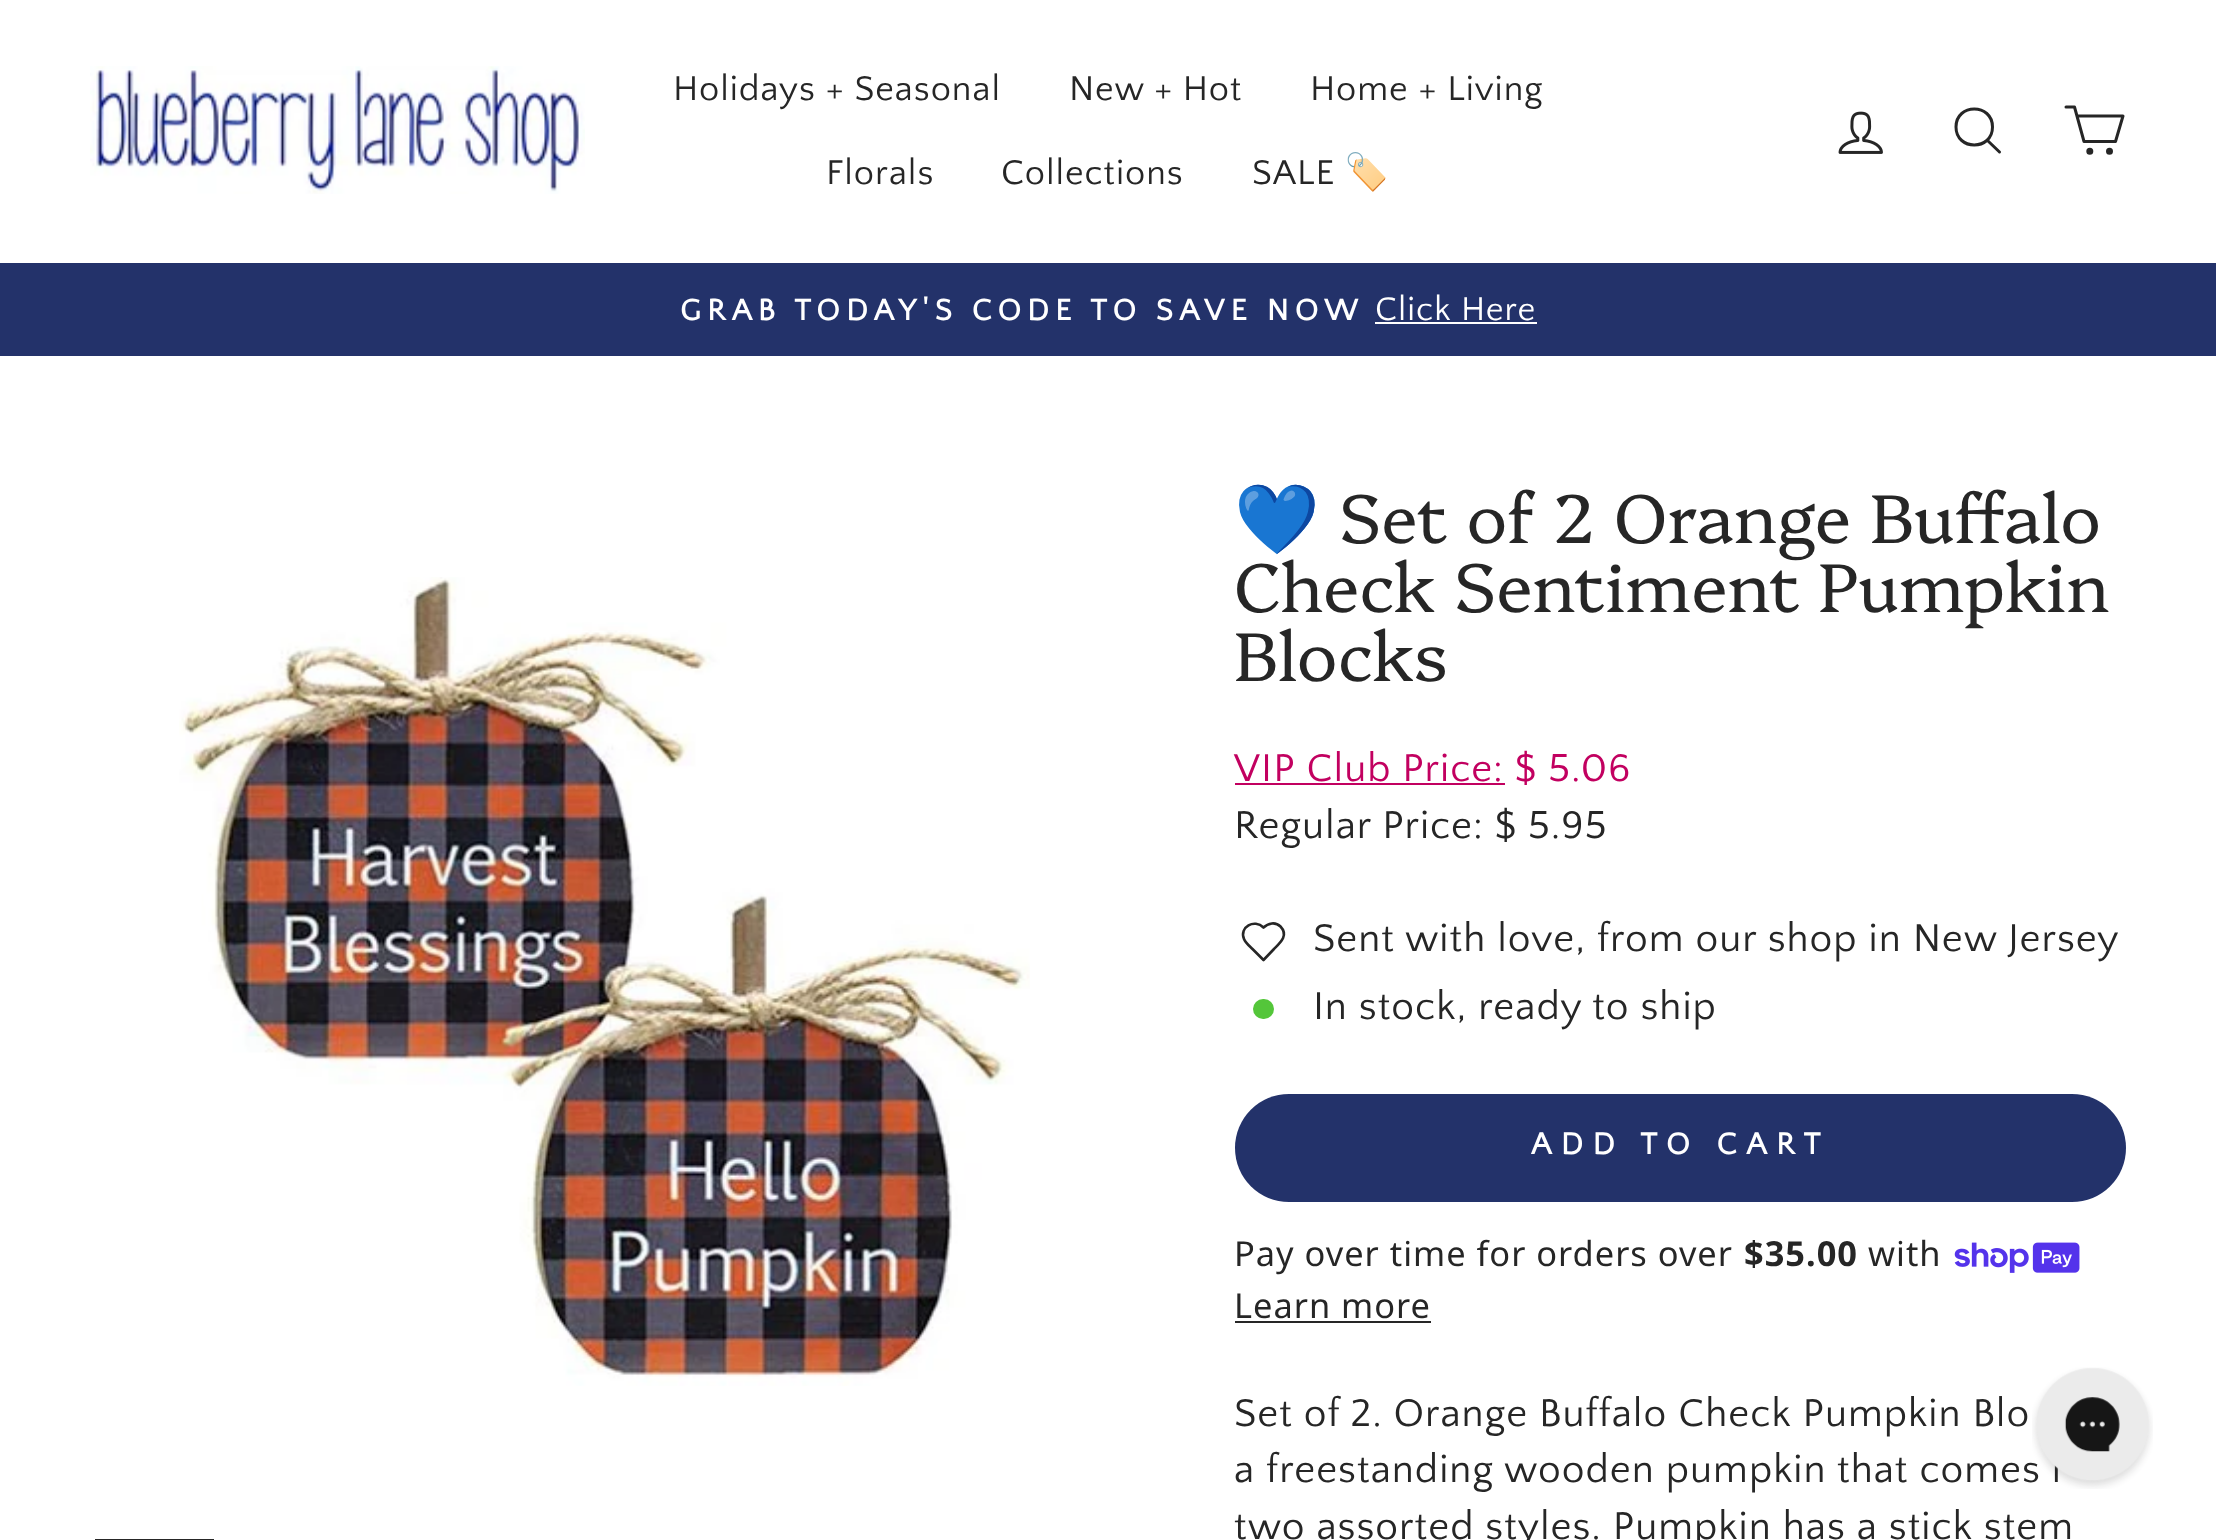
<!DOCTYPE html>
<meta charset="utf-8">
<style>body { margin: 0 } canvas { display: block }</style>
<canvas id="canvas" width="2216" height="1540"></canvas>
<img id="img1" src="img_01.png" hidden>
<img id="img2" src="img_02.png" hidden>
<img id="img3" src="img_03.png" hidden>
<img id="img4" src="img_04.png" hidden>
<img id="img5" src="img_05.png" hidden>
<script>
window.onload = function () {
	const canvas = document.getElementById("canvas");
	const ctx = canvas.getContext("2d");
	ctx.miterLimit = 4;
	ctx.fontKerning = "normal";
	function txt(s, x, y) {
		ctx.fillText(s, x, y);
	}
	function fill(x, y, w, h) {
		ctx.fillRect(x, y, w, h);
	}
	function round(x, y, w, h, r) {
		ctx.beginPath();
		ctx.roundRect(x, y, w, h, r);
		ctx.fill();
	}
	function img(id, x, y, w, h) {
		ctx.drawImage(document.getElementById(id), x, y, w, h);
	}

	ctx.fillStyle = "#FFFFFF";
	fill(0, 0, 2216, 1540);
	img("img1", 90, 66, 495, 128);
	img("img2", 1838, 111, 45, 43);
	ctx.beginPath();
	ctx.moveTo(1992.5, 127);
	ctx.bezierCurveTo(1992.5, 151, 1956, 151, 1956, 127);
	ctx.bezierCurveTo(1956, 103, 1992.5, 103, 1992.5, 127);
	ctx.closePath();
	ctx.moveTo(1999.5, 152);
	ctx.lineTo(1987.5, 140.5);
	ctx.strokeStyle = "#262626";
	ctx.lineWidth = 3;
	ctx.lineCap = "round";
	ctx.lineJoin = "round";
	ctx.stroke();
	ctx.beginPath();
	ctx.moveTo(2077, 116);
	ctx.lineTo(2123, 116);
	ctx.lineTo(2115.5, 141.5);
	ctx.lineTo(2084, 141.5);
	ctx.lineTo(2074.5, 107);
	ctx.lineTo(2066, 107);
	ctx.stroke();
	ctx.fillStyle = "#262626";
	ctx.beginPath();
	ctx.arc(2089.8, 151.2, 2, 0, Math.PI * 2);
	ctx.fill();
	ctx.stroke();
	ctx.beginPath();
	ctx.arc(2109.5, 151.2, 2, 0, Math.PI * 2);
	ctx.fill();
	ctx.stroke();
	ctx.fillStyle = "#23326A";
	fill(0, 263, 2216, 93);
	ctx.fillStyle = "#FFFFFF";
	fill(1375, 322, 162, 2);
	img("img3", 179, 577, 851, 809);
	ctx.lineWidth = 5;
	ctx.lineJoin = "miter";
	ctx.strokeRect(97.5, 1541.5, 114, 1);
	ctx.fillStyle = "#C20060";
	fill(1235, 783, 270, 2);
	ctx.beginPath();
	ctx.moveTo(1280.5, 926.5);
	ctx.bezierCurveTo(1275.5, 921.5, 1268, 923, 1263.5, 927.5);
	ctx.bezierCurveTo(1254.5, 918.5, 1239, 927, 1244, 939);
	ctx.bezierCurveTo(1245.5, 943, 1249.5, 946, 1252.5, 949);
	ctx.lineTo(1263.5, 960);
	ctx.lineTo(1274, 949);
	ctx.bezierCurveTo(1280, 943, 1289, 935.5, 1280.5, 926.5);
	ctx.closePath();
	ctx.lineWidth = 2.6;
	ctx.lineJoin = "round";
	ctx.stroke();
	ctx.fillStyle = "#54C63A";
	round(1253, 999, 21, 20, 10);
	ctx.fillStyle = "#23326A";
	round(1235, 1094, 891, 108, 54);
	img("img4", 1954, 1242, 126, 31);
	ctx.fillStyle = "#262626";
	fill(1235, 1321, 196, 2);
	ctx.letterSpacing = "1px";
	ctx.font = "36px Quattrocento Sans";
	txt("Holidays + Seasonal", 673, 100);
	txt("New + Hot", 1069, 100);
	txt("Home + Living", 1310, 100);
	txt("Florals", 826, 184);
	txt("Collections", 1001, 184);
	txt("SALE", 1252, 184);
	ctx.font = "36px Noto Color Emoji";
	txt("🏷️", 1344, 184);
	ctx.letterSpacing = "6.2px";
	ctx.font = "bold 31px Quattrocento Sans";
	ctx.fillStyle = "#FFFFFF";
	txt("GRAB TODAY'S CODE TO SAVE NOW", 680, 320);
	ctx.letterSpacing = "1px";
	ctx.font = "34.4px Quattrocento Sans";
	txt("Click Here", 1375, 320);
	ctx.letterSpacing = "0px";
	ctx.font = "68.8px Noto Color Emoji";
	ctx.fillStyle = "#262626";
	txt("💙", 1234, 543);
	ctx.wordSpacing = "0.5px";
	ctx.font = "300 68.8px Platypi";
	txt("Set of 2 Orange Buffalo", 1339, 543);
	ctx.wordSpacing = "0px";
	txt("Check Sentiment Pumpkin", 1234, 612);
	txt("Blocks", 1234, 681);
	ctx.letterSpacing = "1px";
	ctx.font = "40.5px Quattrocento Sans";
	ctx.fillStyle = "#C20060";
	txt("VIP Club Price: $ 5.06", 1234, 781);
	ctx.fillStyle = "#262626";
	txt("Regular Price: $ 5.95", 1234, 838);
	txt("Sent with love, from our shop in New Jersey", 1313, 951);
	txt("In stock, ready to ship", 1313, 1019);
	ctx.letterSpacing = "9.5px";
	ctx.font = "bold 31.5px Quattrocento Sans";
	ctx.fillStyle = "#FFFFFF";
	txt("ADD TO CART", 1531, 1154);
	ctx.letterSpacing = "1px";
	ctx.font = "34.4px Noto Sans";
	ctx.fillStyle = "#262626";
	txt("Pay over time for orders over", 1234, 1266);
	ctx.font = "bold 34.4px Noto Sans";
	txt("$35.00", 1744, 1266);
	ctx.font = "34.4px Noto Sans";
	txt("with", 1868, 1266);
	txt("Learn more", 1234, 1318);
	ctx.font = "40.5px Quattrocento Sans";
	txt("Set of 2. Orange Buffalo Check Pumpkin Blo", 1234, 1426);
	txt("a freestanding wooden pumpkin that comes i", 1234, 1482);
	txt("two assorted styles. Pumpkin has a stick stem", 1234, 1539);
	img("img5", 2032, 1367, 121, 122);
};
</script>
